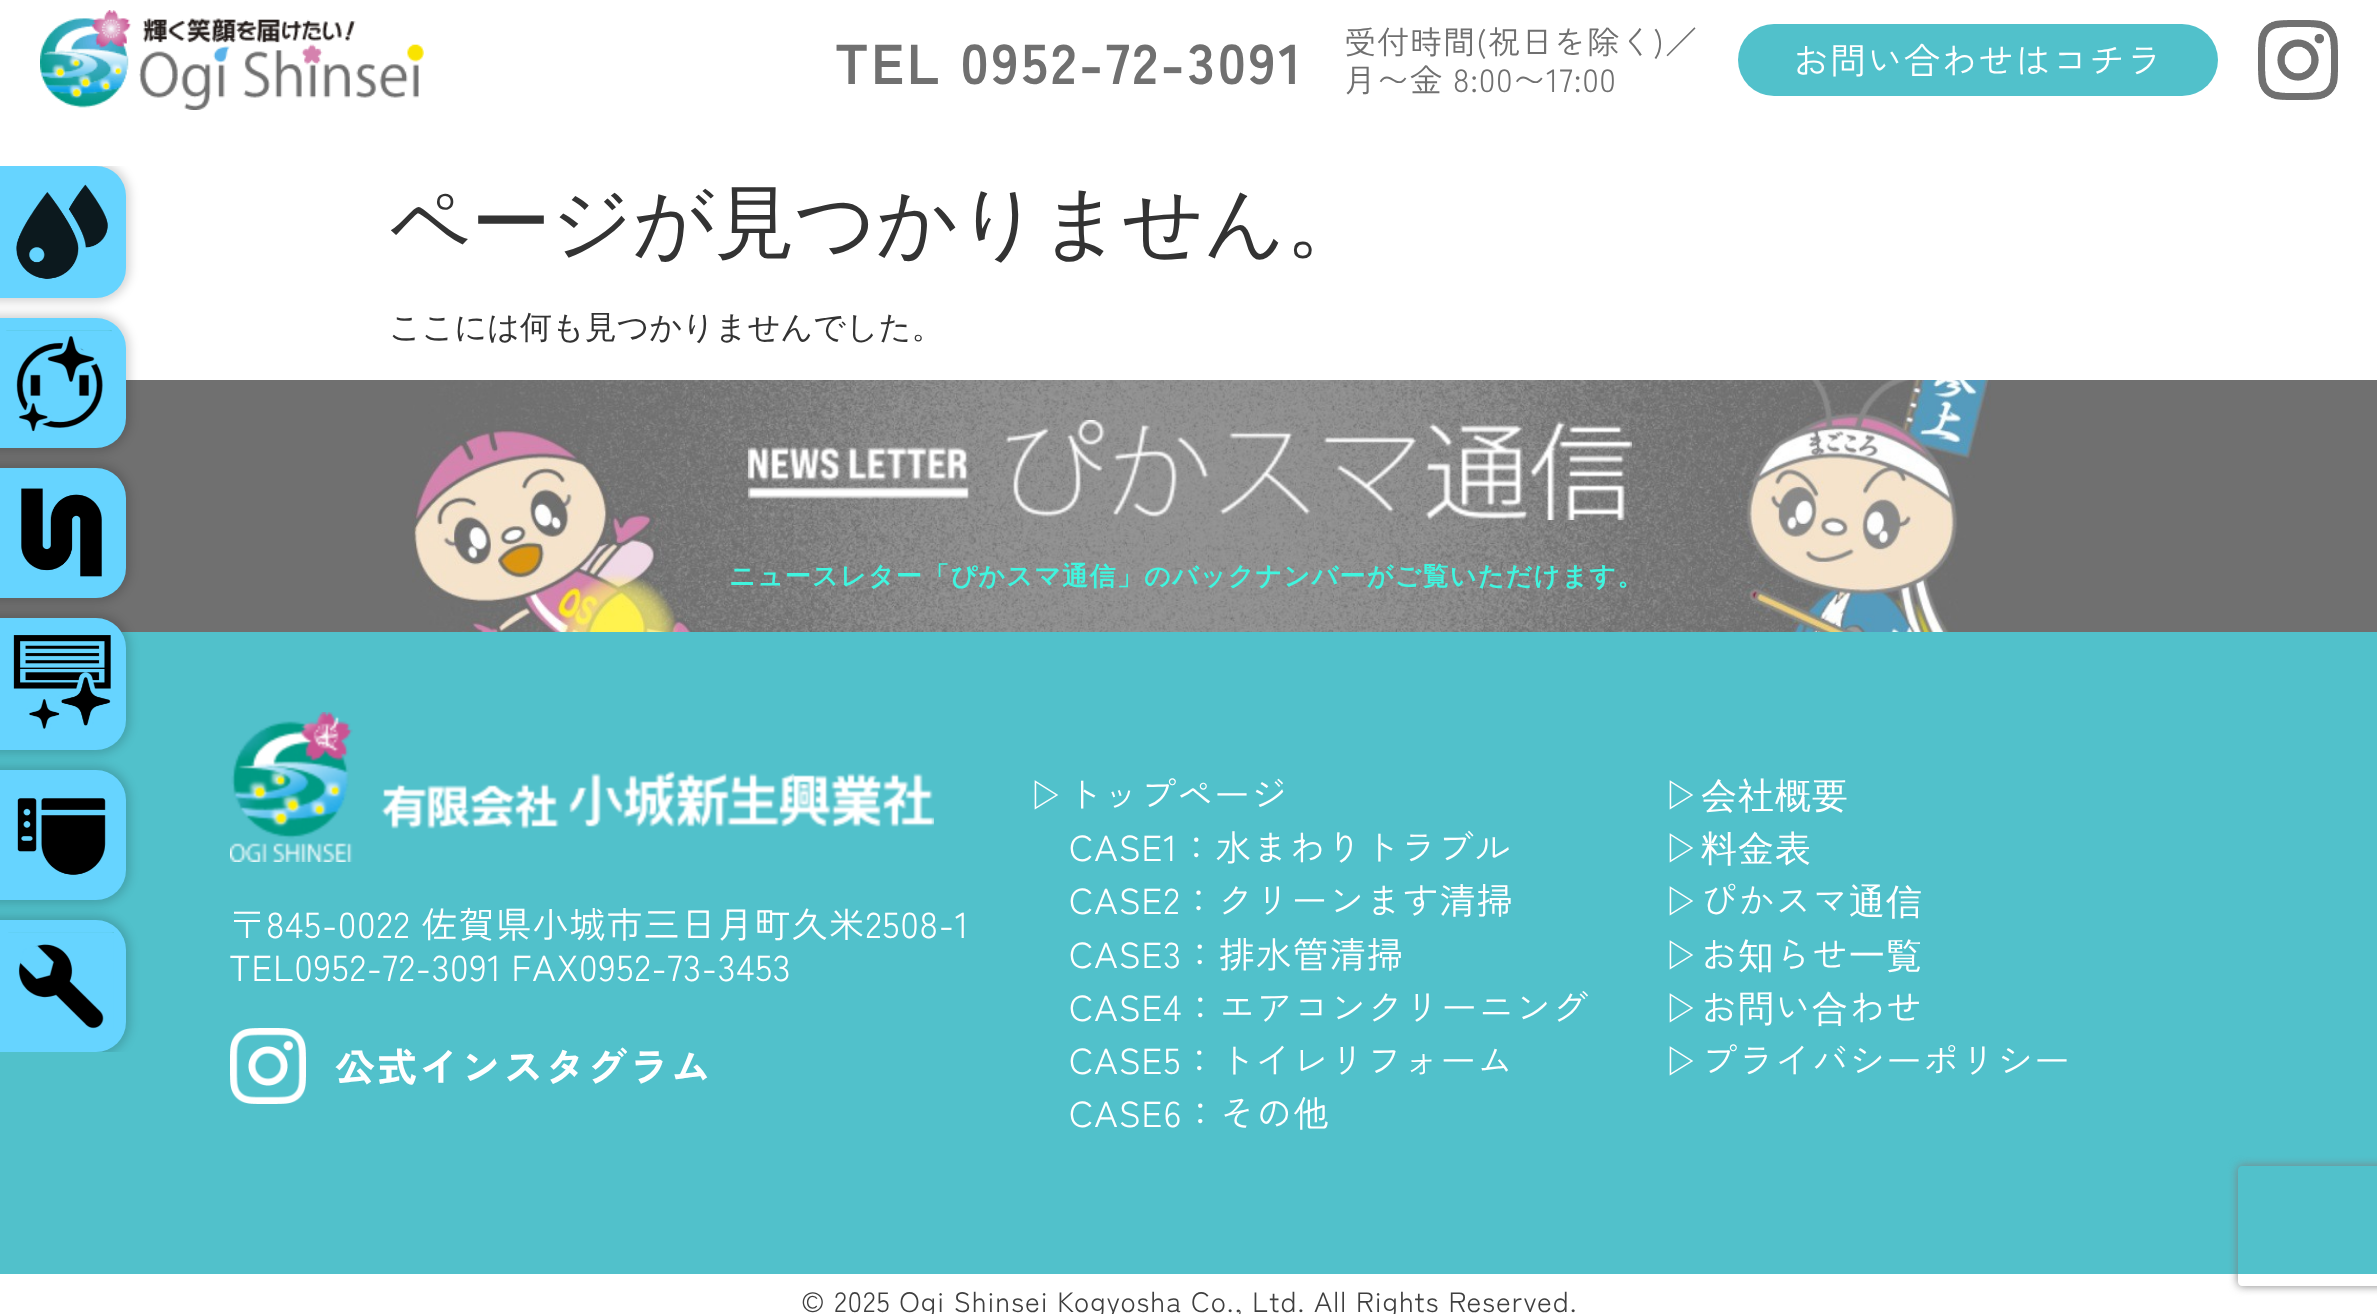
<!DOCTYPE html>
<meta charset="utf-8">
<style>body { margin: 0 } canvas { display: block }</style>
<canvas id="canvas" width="2377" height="1314"></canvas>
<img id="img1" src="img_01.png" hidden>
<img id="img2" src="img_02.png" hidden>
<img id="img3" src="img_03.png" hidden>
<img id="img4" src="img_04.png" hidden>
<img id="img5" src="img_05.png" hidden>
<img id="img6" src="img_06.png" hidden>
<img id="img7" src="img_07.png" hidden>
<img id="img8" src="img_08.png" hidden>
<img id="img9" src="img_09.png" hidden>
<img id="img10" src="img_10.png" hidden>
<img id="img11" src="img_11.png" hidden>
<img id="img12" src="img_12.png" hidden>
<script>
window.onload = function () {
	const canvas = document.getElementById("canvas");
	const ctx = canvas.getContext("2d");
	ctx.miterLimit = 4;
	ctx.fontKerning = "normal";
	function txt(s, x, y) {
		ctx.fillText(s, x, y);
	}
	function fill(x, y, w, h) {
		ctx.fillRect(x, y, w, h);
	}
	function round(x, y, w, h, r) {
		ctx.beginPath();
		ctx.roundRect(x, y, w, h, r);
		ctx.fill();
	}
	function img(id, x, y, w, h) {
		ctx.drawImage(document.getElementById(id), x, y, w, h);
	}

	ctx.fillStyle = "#FFFFFF";
	fill(0, 0, 2377, 1314);
	img("img1", 40, 10, 384, 100);
	ctx.fillStyle = "#51C1CB";
	round(1738, 24, 480, 72, 36);
	img("img2", 2258, 20, 80, 80);
	ctx.save();
	ctx.beginPath();
	ctx.rect(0, 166, 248, 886);
	ctx.clip();
	ctx.fillStyle = "rgba(0, 0, 0, 0.16)";
	ctx.filter = "blur(5px)";
	ctx.beginPath();
	ctx.roundRect(-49, 162, 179, 140, 34);
	ctx.fill();
	ctx.filter = "none";
	ctx.restore();
	ctx.fillStyle = "#66D4FF";
	ctx.beginPath();
	ctx.roundRect(0, 166, 126, 132, [0, 30, 30, 0]);
	ctx.fill();
	img("img3", 16, 184, 92, 95);
	ctx.fillStyle = "#707070";
	fill(0, 380, 2377, 252);
	ctx.fillStyle = "rgba(0, 0, 0, 0.16)";
	ctx.filter = "blur(5px)";
	ctx.beginPath();
	ctx.roundRect(-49, 314, 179, 138, 34);
	ctx.fill();
	ctx.filter = "none";
	ctx.fillStyle = "#66D4FF";
	ctx.beginPath();
	ctx.roundRect(0, 318, 126, 130, [0, 30, 30, 0]);
	ctx.fill();
	img("img4", 6, 330, 106, 102);
	ctx.fillStyle = "rgba(0, 0, 0, 0.16)";
	ctx.filter = "blur(5px)";
	ctx.beginPath();
	ctx.roundRect(-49, 464, 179, 138, 34);
	ctx.fill();
	ctx.filter = "none";
	ctx.fillStyle = "#66D4FF";
	ctx.beginPath();
	ctx.roundRect(0, 468, 126, 130, [0, 30, 30, 0]);
	ctx.fill();
	img("img5", 21, 488, 81, 89);
	ctx.fillStyle = "#51C1CB";
	fill(0, 632, 2377, 642);
	ctx.fillStyle = "rgba(0, 0, 0, 0.16)";
	ctx.filter = "blur(5px)";
	ctx.beginPath();
	ctx.roundRect(-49, 614, 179, 140, 34);
	ctx.fill();
	ctx.filter = "none";
	ctx.fillStyle = "#66D4FF";
	ctx.beginPath();
	ctx.roundRect(0, 618, 126, 132, [0, 30, 30, 0]);
	ctx.fill();
	img("img6", 13, 635, 98, 94);
	ctx.fillStyle = "rgba(0, 0, 0, 0.16)";
	ctx.filter = "blur(5px)";
	ctx.beginPath();
	ctx.roundRect(-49, 766, 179, 138, 34);
	ctx.fill();
	ctx.filter = "none";
	ctx.fillStyle = "#66D4FF";
	ctx.beginPath();
	ctx.roundRect(0, 770, 126, 130, [0, 30, 30, 0]);
	ctx.fill();
	img("img7", 17, 798, 89, 77);
	ctx.save();
	ctx.beginPath();
	ctx.rect(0, 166, 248, 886);
	ctx.clip();
	ctx.fillStyle = "rgba(0, 0, 0, 0.16)";
	ctx.filter = "blur(5px)";
	ctx.beginPath();
	ctx.roundRect(-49, 916, 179, 140, 34);
	ctx.fill();
	ctx.filter = "none";
	ctx.restore();
	ctx.beginPath();
	ctx.roundRect(0, 920, 126, 132, [0, 30, 30, 0]);
	ctx.fill();
	img("img8", 8, 932, 106, 97);
	img("img9", 412, 380, 1579, 252);
	img("img10", 748, 420, 884, 100);
	img("img11", 230, 712, 704, 150);
	img("img12", 230, 1028, 76, 76);
	ctx.save();
	ctx.beginPath();
	ctx.moveTo(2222, 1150);
	ctx.lineTo(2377, 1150);
	ctx.lineTo(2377, 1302);
	ctx.lineTo(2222, 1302);
	ctx.closePath();
	ctx.moveTo(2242, 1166);
	ctx.lineTo(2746, 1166);
	ctx.bezierCurveTo(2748, 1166, 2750, 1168, 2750, 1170);
	ctx.lineTo(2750, 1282);
	ctx.bezierCurveTo(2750, 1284, 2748, 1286, 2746, 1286);
	ctx.lineTo(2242, 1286);
	ctx.bezierCurveTo(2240, 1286, 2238, 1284, 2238, 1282);
	ctx.lineTo(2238, 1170);
	ctx.bezierCurveTo(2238, 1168, 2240, 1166, 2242, 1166);
	ctx.closePath();
	ctx.clip("evenodd");
	ctx.fillStyle = "#808080";
	ctx.filter = "blur(5px)";
	ctx.beginPath();
	ctx.roundRect(2238, 1166, 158, 120, 4);
	ctx.fill();
	ctx.filter = "none";
	ctx.restore();
	ctx.letterSpacing = "3px";
	ctx.font = "bold 56px Zen Kaku Gothic New";
	ctx.fillStyle = "#707070";
	txt("TEL 0952-72-3091", 835, 84);
	ctx.letterSpacing = "1px";
	ctx.font = "32px Zen Kaku Gothic New";
	txt("受付時間(祝日を除く)／", 1344, 54);
	txt("月〜金 8:00〜17:00", 1344, 92);
	ctx.font = "36px Zen Kaku Gothic New";
	ctx.fillStyle = "#FFFFFF";
	txt("お問い合わせはコチラ", 1793, 74);
	ctx.letterSpacing = "0px";
	ctx.font = "500 80px WenQuanYi Zen Hei";
	ctx.fillStyle = "#333333";
	txt("ページが見つかりません。", 389, 250);
	ctx.font = "500 32px WenQuanYi Zen Hei";
	txt("ここには何も見つかりませんでした。", 389, 338);
	ctx.letterSpacing = "1.3px";
	ctx.font = "bold 26px WenQuanYi Zen Hei";
	ctx.fillStyle = "#40F5DF";
	txt("ニュースレター「ぴかスマ通信」のバックナンバーがご覧いただけます。", 729, 585);
	ctx.letterSpacing = "1px";
	ctx.font = "36px Zen Kaku Gothic New";
	ctx.fillStyle = "#FFFFFF";
	txt("〒845-0022 佐賀県小城市三日月町久米2508-1", 229, 938);
	ctx.wordSpacing = "-2px";
	txt("TEL0952-72-3091 FAX0952-73-3453", 229, 981);
	ctx.letterSpacing = "2px";
	ctx.wordSpacing = "0px";
	ctx.font = "bold 40px Zen Kaku Gothic New";
	txt("公式インスタグラム", 335, 1082);
	ctx.letterSpacing = "1px";
	ctx.font = "500 36px WenQuanYi Zen Hei";
	txt("▷", 1029, 808);
	ctx.font = "36px Zen Kaku Gothic New";
	txt("トップページ", 1066, 808);
	txt("CASE1：水まわりトラブル", 1069, 861);
	txt("CASE2：クリーンます清掃", 1069, 914);
	txt("CASE3：排水管清掃", 1069, 968);
	txt("CASE4：エアコンクリーニング", 1069, 1021);
	txt("CASE5：トイレリフォーム", 1069, 1074);
	txt("CASE6：その他", 1069, 1127);
	ctx.font = "500 36px WenQuanYi Zen Hei";
	txt("▷会社概要", 1664, 808);
	txt("▷料金表", 1664, 861);
	txt("▷", 1664, 914);
	ctx.font = "36px Zen Kaku Gothic New";
	txt("ぴかスマ", 1701, 914);
	ctx.font = "500 36px WenQuanYi Zen Hei";
	txt("通信", 1849, 914);
	txt("▷", 1664, 968);
	ctx.font = "36px Zen Kaku Gothic New";
	txt("お", 1701, 968);
	ctx.font = "500 36px WenQuanYi Zen Hei";
	txt("知", 1738, 968);
	ctx.font = "36px Zen Kaku Gothic New";
	txt("らせ", 1775, 968);
	ctx.font = "500 36px WenQuanYi Zen Hei";
	txt("一覧", 1849, 968);
	txt("▷", 1664, 1021);
	ctx.font = "36px Zen Kaku Gothic New";
	txt("お", 1701, 1021);
	ctx.font = "500 36px WenQuanYi Zen Hei";
	txt("問", 1738, 1021);
	ctx.font = "36px Zen Kaku Gothic New";
	txt("い", 1775, 1021);
	ctx.font = "500 36px WenQuanYi Zen Hei";
	txt("合", 1812, 1021);
	ctx.font = "36px Zen Kaku Gothic New";
	txt("わせ", 1849, 1021);
	ctx.font = "500 36px WenQuanYi Zen Hei";
	txt("▷", 1664, 1074);
	ctx.font = "36px Zen Kaku Gothic New";
	txt("プライバシーポリシー", 1701, 1074);
	ctx.font = "28px Zen Kaku Gothic New";
	ctx.fillStyle = "#3F3F3F";
	txt("© 2025 Ogi Shinsei Kogyosha Co., Ltd. All Rights Reserved.", 801, 1312);
};
</script>
